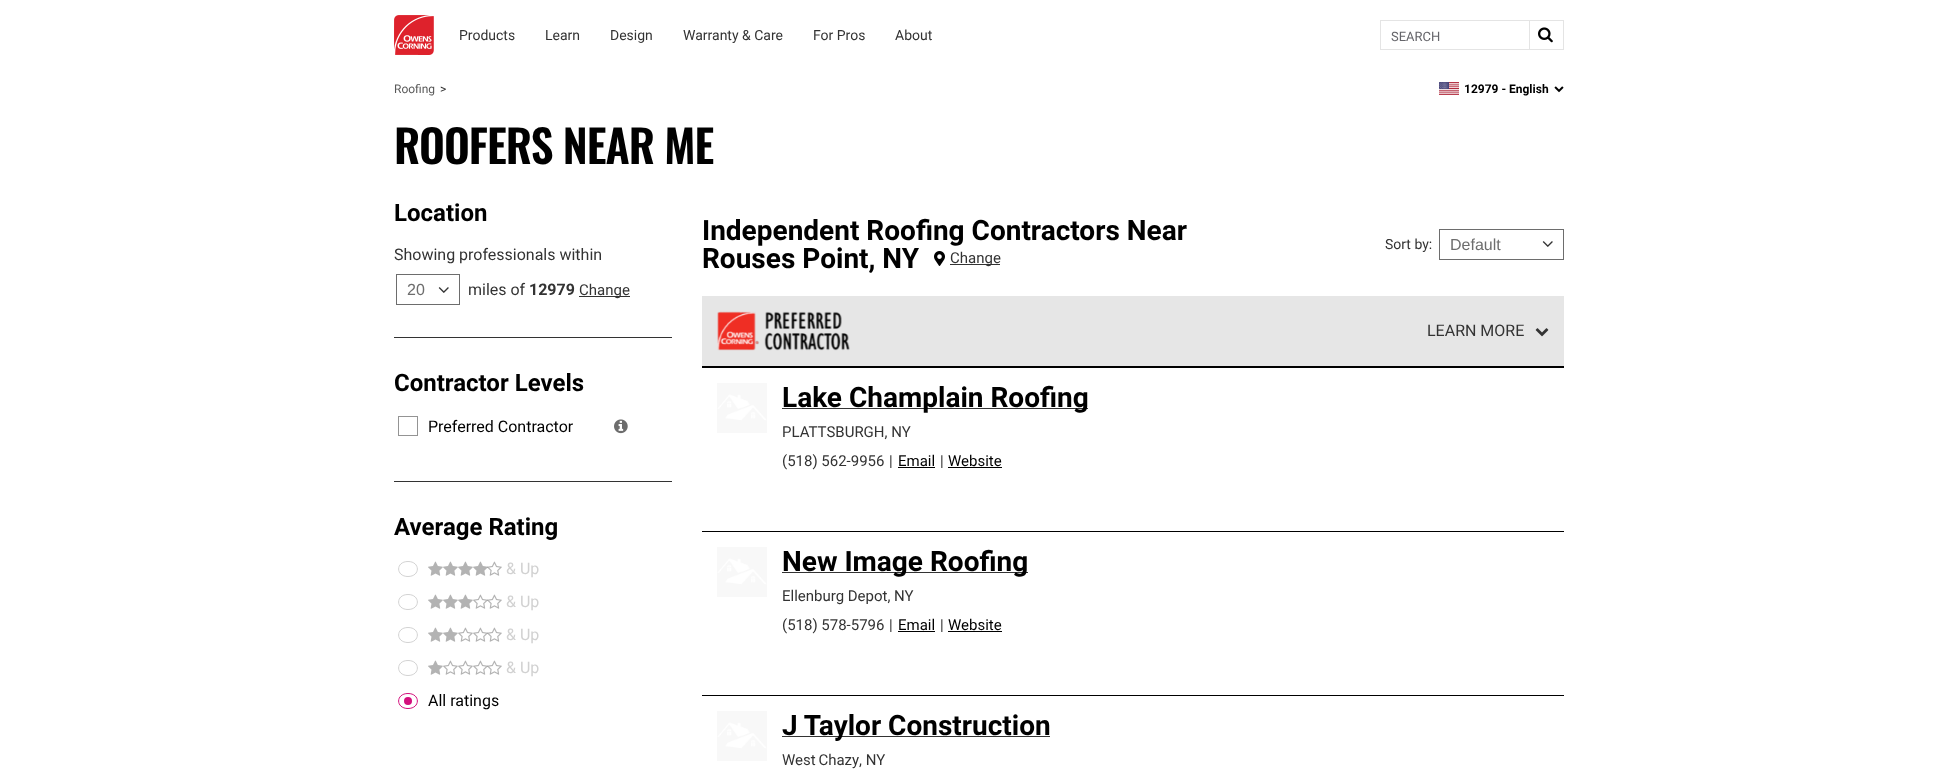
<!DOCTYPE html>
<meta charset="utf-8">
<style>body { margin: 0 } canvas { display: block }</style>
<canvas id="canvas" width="1958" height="779"></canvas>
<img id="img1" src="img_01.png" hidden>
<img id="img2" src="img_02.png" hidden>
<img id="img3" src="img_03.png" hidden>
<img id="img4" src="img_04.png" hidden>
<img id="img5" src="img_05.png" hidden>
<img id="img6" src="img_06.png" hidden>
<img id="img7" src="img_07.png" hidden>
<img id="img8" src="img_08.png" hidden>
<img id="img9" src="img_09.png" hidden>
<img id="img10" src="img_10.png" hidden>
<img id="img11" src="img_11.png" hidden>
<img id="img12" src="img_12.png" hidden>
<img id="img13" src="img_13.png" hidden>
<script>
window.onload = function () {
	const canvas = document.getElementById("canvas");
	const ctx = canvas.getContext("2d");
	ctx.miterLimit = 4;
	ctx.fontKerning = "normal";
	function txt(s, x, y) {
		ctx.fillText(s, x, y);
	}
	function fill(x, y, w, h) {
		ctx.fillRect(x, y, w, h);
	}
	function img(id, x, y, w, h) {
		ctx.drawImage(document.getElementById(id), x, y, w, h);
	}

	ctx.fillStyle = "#FFFFFF";
	fill(0, 0, 1958, 779);
	img("img1", 394, 15, 40, 40);
	ctx.strokeStyle = "#E4E4E4";
	ctx.strokeRect(1380.5, 20.5, 149, 29);
	ctx.fillStyle = "#E4E4E4";
	fill(1528, 20, 36, 1);
	fill(1563, 20, 1, 30);
	fill(1528, 49, 36, 1);
	img("img2", 1538, 27, 15, 16);
	img("img3", 1439, 82, 20, 13);
	img("img4", 1554, 86, 10, 7);
	ctx.strokeStyle = "#6D6D6D";
	ctx.strokeRect(396.5, 274.5, 63, 30);
	img("img5", 438, 287, 11, 6);
	ctx.fillStyle = "#333333";
	fill(579, 296, 51, 1);
	fill(394, 337, 278, 1);
	ctx.strokeStyle = "#949494";
	ctx.strokeRect(398.5, 416.5, 19, 19);
	img("img6", 614, 419, 14, 15);
	fill(394, 481, 278, 1);
	ctx.beginPath();
	ctx.moveTo(408, 561.5);
	ctx.bezierCurveTo(420.5, 561.5, 420.5, 576.5, 408, 576.5);
	ctx.bezierCurveTo(395.5, 576.5, 395.5, 561.5, 408, 561.5);
	ctx.closePath();
	ctx.strokeStyle = "#D3D3D3";
	ctx.stroke();
	img("img7", 428, 561, 15, 15);
	img("img7", 443, 561, 15, 15);
	img("img7", 458, 561, 15, 15);
	img("img7", 473, 561, 15, 15);
	img("img8", 487, 561, 15, 15);
	ctx.beginPath();
	ctx.moveTo(408, 594.5);
	ctx.bezierCurveTo(420.5, 594.5, 420.5, 609.5, 408, 609.5);
	ctx.bezierCurveTo(395.5, 609.5, 395.5, 594.5, 408, 594.5);
	ctx.closePath();
	ctx.stroke();
	img("img7", 428, 594, 15, 15);
	img("img7", 443, 594, 15, 15);
	img("img7", 458, 594, 15, 15);
	img("img9", 473, 594, 15, 15);
	img("img8", 487, 594, 15, 15);
	ctx.beginPath();
	ctx.moveTo(408, 627.5);
	ctx.bezierCurveTo(420.5, 627.5, 420.5, 642.5, 408, 642.5);
	ctx.bezierCurveTo(395.5, 642.5, 395.5, 627.5, 408, 627.5);
	ctx.closePath();
	ctx.stroke();
	img("img7", 428, 627, 15, 15);
	img("img7", 443, 627, 15, 15);
	img("img9", 458, 627, 15, 15);
	img("img9", 473, 627, 15, 15);
	img("img8", 487, 627, 15, 15);
	ctx.beginPath();
	ctx.moveTo(408, 660.5);
	ctx.bezierCurveTo(420.5, 660.5, 420.5, 675.5, 408, 675.5);
	ctx.bezierCurveTo(395.5, 675.5, 395.5, 660.5, 408, 660.5);
	ctx.closePath();
	ctx.stroke();
	img("img7", 428, 660, 15, 15);
	img("img9", 443, 660, 15, 15);
	img("img9", 458, 660, 15, 15);
	img("img9", 473, 660, 15, 15);
	img("img8", 487, 660, 15, 15);
	ctx.beginPath();
	ctx.moveTo(408, 693.5);
	ctx.bezierCurveTo(420.5, 693.5, 420.5, 708.5, 408, 708.5);
	ctx.bezierCurveTo(395.5, 708.5, 395.5, 693.5, 408, 693.5);
	ctx.closePath();
	ctx.strokeStyle = "#D40F7D";
	ctx.stroke();
	ctx.fillStyle = "#D40F7D";
	ctx.beginPath();
	ctx.arc(408, 701, 4, 0, Math.PI * 2);
	ctx.fill();
	img("img10", 934, 251, 11, 15);
	ctx.fillStyle = "#333333";
	fill(950, 264, 50, 1);
	ctx.strokeStyle = "#6D6D6D";
	ctx.strokeRect(1439.5, 229.5, 124, 30);
	img("img5", 1542, 241, 11, 6);
	ctx.fillStyle = "#E6E6E6";
	fill(702, 296, 862, 70);
	ctx.fillStyle = "#000000";
	fill(702, 366, 862, 2);
	img("img11", 717, 311, 133, 40);
	img("img12", 1535, 328, 14, 9);
	fill(702, 531, 862, 1);
	img("img13", 717, 383, 50, 50);
	ctx.fillStyle = "#333333";
	fill(782, 408, 306, 1);
	ctx.fillStyle = "#000000";
	fill(898, 467, 37, 1);
	fill(948, 467, 54, 1);
	fill(702, 695, 862, 1);
	img("img13", 717, 547, 50, 50);
	ctx.fillStyle = "#333333";
	fill(782, 572, 246, 1);
	ctx.fillStyle = "#000000";
	fill(898, 631, 37, 1);
	fill(948, 631, 54, 1);
	img("img13", 717, 711, 50, 50);
	ctx.fillStyle = "#333333";
	fill(782, 736, 268, 1);
	ctx.font = "14px Roboto";
	txt("Products", 459, 40);
	txt("Learn", 545, 40);
	txt("Design", 610, 40);
	txt("Warranty & Care", 683, 40);
	txt("For Pros", 813, 40);
	txt("About", 895, 40);
	ctx.font = "13px Roboto";
	ctx.fillStyle = "#65656A";
	txt("SEARCH", 1391, 41);
	ctx.font = "12px Roboto";
	ctx.fillStyle = "#585858";
	txt("Roofing", 394, 93);
	ctx.fillStyle = "#333333";
	txt(">", 440, 93);
	ctx.font = "bold 12px Roboto";
	ctx.fillStyle = "#000000";
	txt("12979 - English", 1464, 93);
	ctx.letterSpacing = "-1px";
	ctx.font = "600 45px Oswald";
	txt("ROOFERS NEAR ME", 394, 164);
	ctx.letterSpacing = "0px";
	ctx.font = "bold 24px Roboto";
	txt("Location", 394, 221);
	ctx.font = "16px Roboto";
	ctx.fillStyle = "#333333";
	txt("Showing professionals within", 394, 260);
	ctx.font = "16px Liberation Sans";
	ctx.fillStyle = "#6D6D6D";
	txt("20", 407, 295);
	ctx.font = "16px Roboto";
	ctx.fillStyle = "#333333";
	txt("miles of", 468, 295);
	ctx.font = "bold 16px Roboto";
	txt("12979", 529, 295);
	ctx.font = "15px Roboto";
	txt("Change", 579, 295);
	ctx.font = "bold 24px Roboto";
	ctx.fillStyle = "#000000";
	txt("Contractor Levels", 394, 391);
	ctx.font = "16px Roboto";
	txt("Preferred Contractor", 428, 432);
	ctx.font = "bold 24px Roboto";
	txt("Average Rating", 394, 535);
	ctx.font = "16px Roboto";
	ctx.fillStyle = "#D1D1D1";
	txt("& Up", 506, 574);
	txt("& Up", 506, 607);
	txt("& Up", 506, 640);
	txt("& Up", 506, 673);
	ctx.fillStyle = "#000000";
	txt("All ratings", 428, 706);
	ctx.font = "bold 28px Roboto";
	txt("Independent Roofing Contractors Near", 702, 240);
	txt("Rouses Point, NY", 702, 268);
	ctx.font = "15px Roboto";
	ctx.fillStyle = "#333333";
	txt("Change", 950, 263);
	ctx.font = "14px Roboto";
	txt("Sort by:", 1385, 249);
	ctx.font = "16px Liberation Sans";
	ctx.fillStyle = "#6D6D6D";
	txt("Default", 1450, 250);
	ctx.font = "16px Roboto";
	ctx.fillStyle = "#333333";
	txt("LEARN MORE", 1427, 336);
	ctx.font = "bold 28px Roboto";
	ctx.fillStyle = "#000000";
	txt("Lake Champlain Roofing", 782, 407);
	ctx.font = "15px Roboto";
	ctx.fillStyle = "#333333";
	txt("PLATTSBURGH, NY", 782, 437);
	txt("(518) 562-9956", 782, 466);
	txt("|", 889, 466);
	ctx.fillStyle = "#000000";
	txt("Email", 898, 466);
	ctx.fillStyle = "#333333";
	txt("|", 940, 466);
	ctx.fillStyle = "#000000";
	txt("Website", 948, 466);
	ctx.font = "bold 28px Roboto";
	txt("New Image Roofing", 782, 571);
	ctx.font = "15px Roboto";
	ctx.fillStyle = "#333333";
	txt("Ellenburg Depot, NY", 782, 601);
	txt("(518) 578-5796", 782, 630);
	txt("|", 889, 630);
	ctx.fillStyle = "#000000";
	txt("Email", 898, 630);
	ctx.fillStyle = "#333333";
	txt("|", 940, 630);
	ctx.fillStyle = "#000000";
	txt("Website", 948, 630);
	ctx.font = "bold 28px Roboto";
	txt("J Taylor Construction", 782, 735);
	ctx.wordSpacing = "-1px";
	ctx.font = "15px Roboto";
	ctx.fillStyle = "#333333";
	txt("West Chazy", 782, 765);
	ctx.wordSpacing = "0px";
	txt(", NY", 859, 765);
};
</script>
